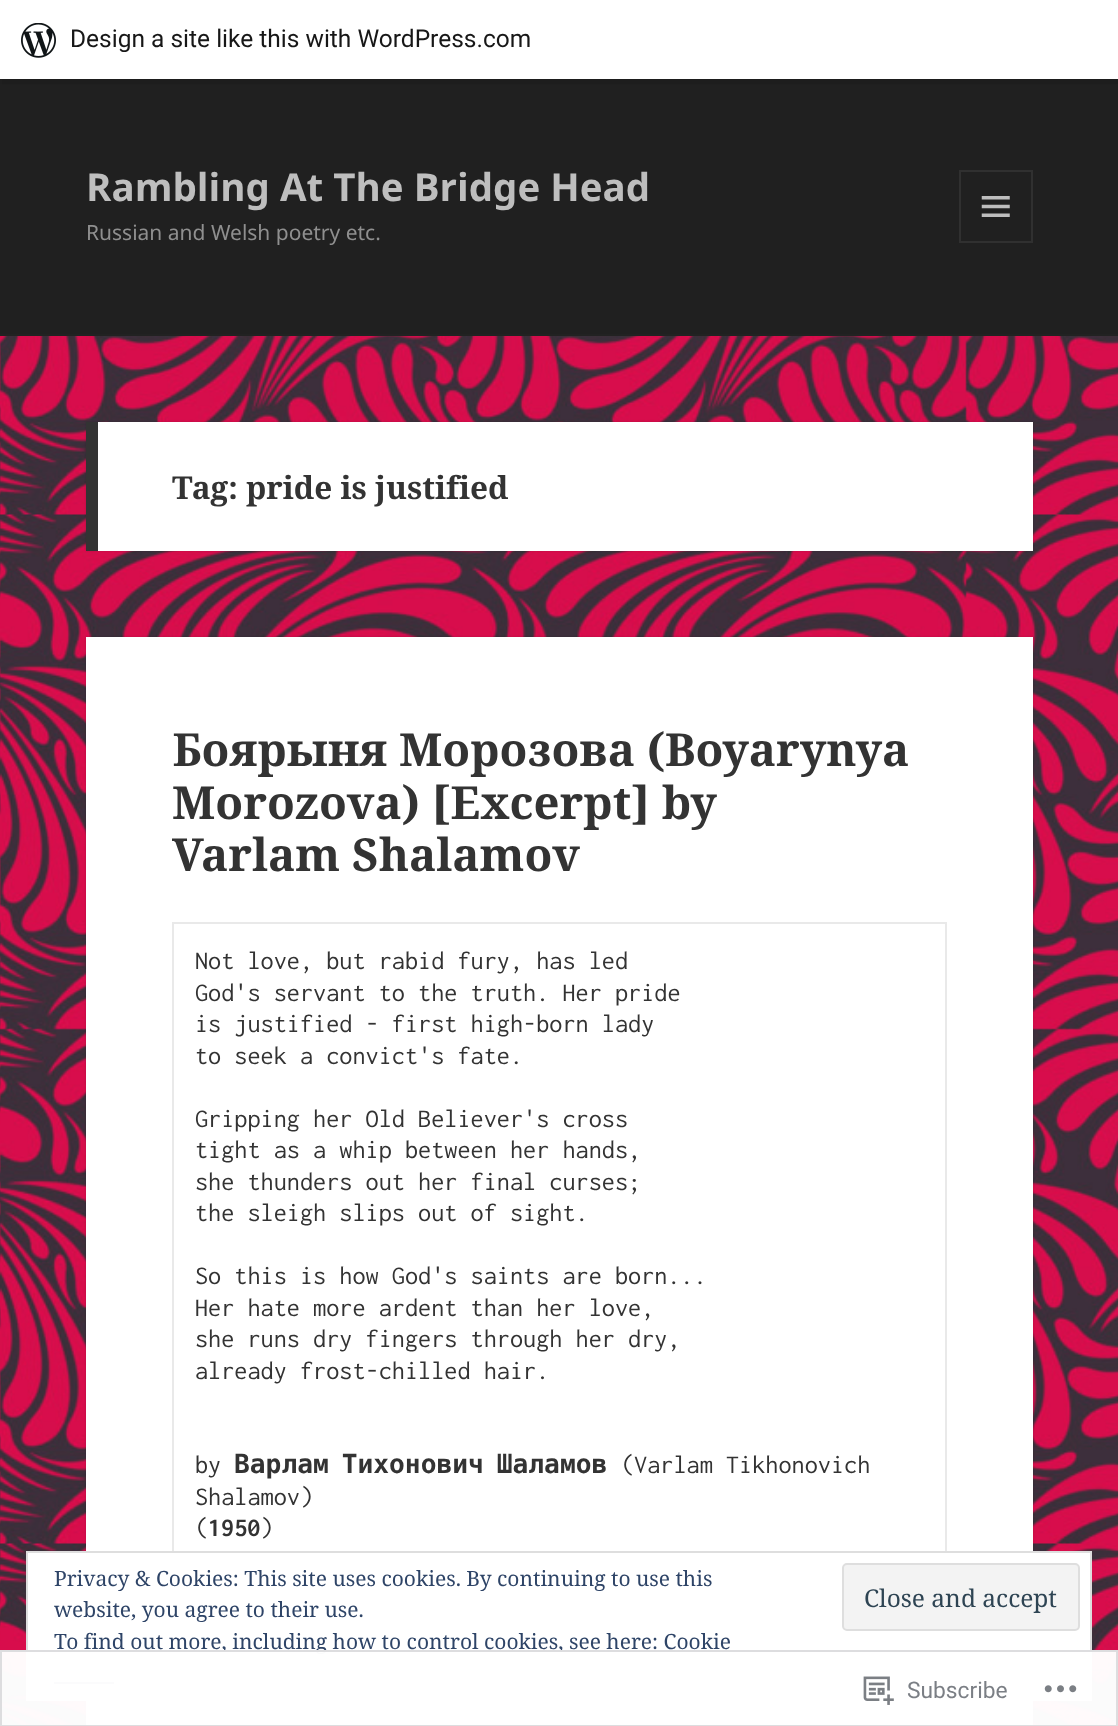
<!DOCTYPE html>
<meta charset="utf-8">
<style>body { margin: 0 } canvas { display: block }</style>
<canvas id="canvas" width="1118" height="1726"></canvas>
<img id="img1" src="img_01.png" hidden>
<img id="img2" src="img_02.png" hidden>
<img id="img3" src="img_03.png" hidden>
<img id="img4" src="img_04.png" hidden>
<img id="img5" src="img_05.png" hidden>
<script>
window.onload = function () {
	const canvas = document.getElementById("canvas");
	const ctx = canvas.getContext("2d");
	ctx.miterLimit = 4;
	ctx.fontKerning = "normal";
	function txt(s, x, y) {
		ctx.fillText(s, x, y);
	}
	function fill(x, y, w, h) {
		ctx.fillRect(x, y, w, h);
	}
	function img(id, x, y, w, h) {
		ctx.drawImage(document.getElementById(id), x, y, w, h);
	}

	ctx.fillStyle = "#FFFFFF";
	fill(0, 0, 1118, 1726);
	img("img1", 0, 336, 1118, 1390);
	ctx.fillStyle = "#202020";
	fill(0, 79, 1118, 255);
	ctx.fillStyle = "rgba(0, 0, 0, 0.05)";
	ctx.filter = "blur(2px)";
	ctx.beginPath();
	ctx.rect(0, 2, 1118, 79);
	ctx.fill();
	ctx.filter = "none";
	ctx.fillStyle = "#1D1D1D";
	ctx.beginPath();
	ctx.moveTo(2, 79);
	ctx.lineTo(2, 84);
	ctx.lineTo(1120, 84);
	ctx.lineTo(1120, 5);
	ctx.lineTo(1118, 5);
	ctx.lineTo(1118, 79);
	ctx.closePath();
	ctx.fill();
	ctx.fillStyle = "#FFFFFF";
	fill(0, 0, 1118, 79);
	img("img2", 21, 23, 35, 35);
	ctx.fillStyle = "#222222";
	fill(0, 334, 1118, 2);
	ctx.strokeStyle = "#303030";
	ctx.lineWidth = 2;
	ctx.strokeRect(960, 171, 72, 71);
	img("img3", 981, 196, 29, 21);
	ctx.fillStyle = "rgba(0, 0, 0, 0.15)";
	ctx.filter = "blur(1px)";
	ctx.beginPath();
	ctx.rect(86, 422, 947, 129);
	ctx.fill();
	ctx.filter = "none";
	ctx.fillStyle = "#FFFFFF";
	fill(98, 422, 935, 129);
	ctx.fillStyle = "#333333";
	fill(86, 422, 12, 129);
	ctx.fillStyle = "rgba(0, 0, 0, 0.15)";
	ctx.filter = "blur(1px)";
	ctx.beginPath();
	ctx.rect(86, 637, 947, 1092);
	ctx.fill();
	ctx.filter = "none";
	ctx.fillStyle = "#FFFFFF";
	fill(86, 637, 947, 1089);
	ctx.strokeStyle = "#E9E9E9";
	ctx.strokeRect(173, 923, 773, 674);
	ctx.beginPath();
	ctx.rect(27, 1552, 1064, 148);
	ctx.fill();
	ctx.strokeStyle = "#DEDEDE";
	ctx.stroke();
	ctx.fillStyle = "#F3F3F3";
	ctx.beginPath();
	ctx.roundRect(843, 1564, 236, 66, 4);
	ctx.fill();
	ctx.stroke();
	ctx.fillStyle = "#2E4467";
	fill(663, 1650, 69, 2);
	fill(54, 1682, 60, 2);
	ctx.font = "24.5px Roboto";
	ctx.fillStyle = "#171717";
	txt("Design a site like this with WordPress.com", 70, 47);
	ctx.font = "bold 38.5px Noto Sans";
	ctx.fillStyle = "#BEBEBE";
	txt("Rambling At The Bridge Head", 86, 201);
	ctx.font = "21px Noto Sans";
	ctx.fillStyle = "#8F8F8F";
	txt("Russian and Welsh poetry etc.", 86, 240);
	ctx.font = "bold 31.5px Noto Serif";
	ctx.fillStyle = "#333333";
	txt("Tag: pride is justified", 172, 499);
	ctx.font = "bold 45.5px Noto Serif";
	txt("Боярыня Морозова (Boyarynya", 172, 766);
	txt("Morozova) [Excerpt] by", 172, 819);
	txt("Varlam Shalamov", 172, 871);
	ctx.font = "26.25px Inconsolata";
	txt("Not love, but rabid fury, has led", 195, 969);
	txt("God's servant to the truth. Her pride", 195, 1001);
	txt("is justified - first high-born lady", 195, 1032);
	txt("to seek a convict's fate.", 195, 1064);
	txt("Gripping her Old Believer's cross", 195, 1127);
	txt("tight as a whip between her hands,", 195, 1158);
	txt("she thunders out her final curses;", 195, 1190);
	txt("the sleigh slips out of sight.", 195, 1221);
	txt("So this is how God's saints are born...", 195, 1284);
	txt("Her hate more ardent than her love,", 195, 1316);
	txt("she runs dry fingers through her dry,", 195, 1347);
	txt("already frost-chilled hair.", 195, 1379);
	txt("by", 195, 1473);
	ctx.wordSpacing = "-3px";
	ctx.font = "bold 26.25px DejaVu Sans Mono";
	txt("Варлам Тихонович Шаламов", 234, 1473);
	ctx.wordSpacing = "0px";
	ctx.font = "26.25px Inconsolata";
	txt("(Varlam Tikhonovich", 621, 1473);
	txt("Shalamov)", 195, 1505);
	txt("(", 195, 1536);
	ctx.font = "bold 26.25px Inconsolata";
	txt("1950", 208, 1536);
	ctx.font = "26.25px Inconsolata";
	txt(")", 260, 1536);
	ctx.font = "21px Noto Serif";
	ctx.fillStyle = "#2E4467";
	txt("Privacy & Cookies: This site uses cookies. By continuing to use this", 54, 1586);
	txt("website, you agree to their use.", 54, 1617);
	ctx.font = "24.5px Noto Serif";
	ctx.fillStyle = "#2E4453";
	txt("Close and accept", 864, 1607);
	ctx.font = "21px Noto Serif";
	ctx.fillStyle = "#2E4467";
	txt("To find out more, including how to control cookies, see here: Cookie", 54, 1649);
	ctx.fillStyle = "rgba(255, 255, 255, 0.98)";
	fill(0, 1650, 1118, 76);
	ctx.strokeStyle = "rgba(220, 220, 222, 0.98)";
	ctx.strokeRect(1, 1651, 1116, 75);
	img("img4", 863, 1676, 31, 29);
	ctx.font = "22.75px Roboto";
	ctx.fillStyle = "#7B7F85";
	txt("Subscribe", 907, 1698);
	img("img5", 1044, 1685, 33, 8);
};
</script>
